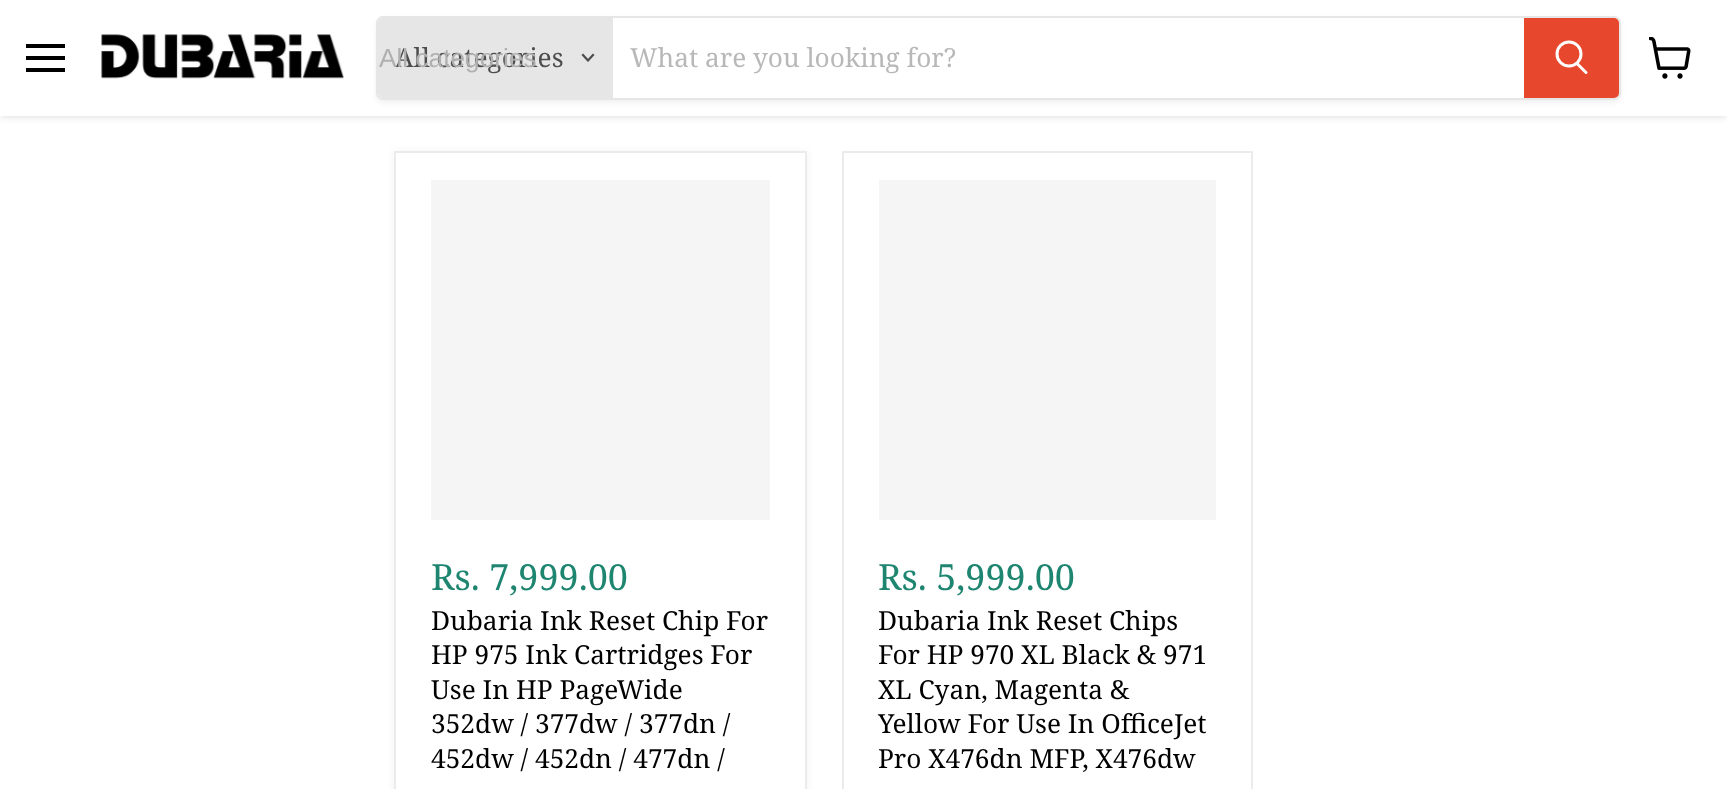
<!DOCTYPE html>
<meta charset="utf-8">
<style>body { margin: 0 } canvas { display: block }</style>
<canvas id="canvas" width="1727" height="789"></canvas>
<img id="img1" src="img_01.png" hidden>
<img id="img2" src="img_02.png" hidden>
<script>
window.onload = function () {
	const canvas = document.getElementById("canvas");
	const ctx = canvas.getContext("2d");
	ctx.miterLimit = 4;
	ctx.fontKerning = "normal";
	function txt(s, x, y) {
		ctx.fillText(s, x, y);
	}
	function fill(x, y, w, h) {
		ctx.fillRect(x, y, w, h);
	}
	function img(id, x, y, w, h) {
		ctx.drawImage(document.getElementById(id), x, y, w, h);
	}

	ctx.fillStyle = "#FFFFFF";
	fill(0, 0, 1727, 789);
	ctx.fillStyle = "rgba(128, 128, 128, 0.25)";
	ctx.filter = "blur(3.5px)";
	ctx.beginPath();
	ctx.rect(0, 2, 1727, 115);
	ctx.fill();
	ctx.filter = "none";
	ctx.fillStyle = "#FFFFFF";
	fill(0, 0, 1727, 116);
	ctx.fillStyle = "#000000";
	fill(26, 44, 39, 4);
	fill(26, 56, 39, 4);
	fill(26, 68, 39, 4);
	img("img1", 101, 34, 243, 45);
	ctx.save();
	ctx.beginPath();
	ctx.moveTo(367, 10);
	ctx.lineTo(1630, 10);
	ctx.lineTo(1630, 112);
	ctx.lineTo(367, 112);
	ctx.closePath();
	ctx.moveTo(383, 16);
	ctx.lineTo(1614, 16);
	ctx.bezierCurveTo(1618, 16, 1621, 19, 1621, 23);
	ctx.lineTo(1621, 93);
	ctx.bezierCurveTo(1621, 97, 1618, 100, 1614, 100);
	ctx.lineTo(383, 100);
	ctx.bezierCurveTo(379, 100, 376, 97, 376, 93);
	ctx.lineTo(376, 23);
	ctx.bezierCurveTo(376, 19, 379, 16, 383, 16);
	ctx.closePath();
	ctx.clip("evenodd");
	ctx.fillStyle = "rgba(128, 128, 128, 0.11)";
	ctx.filter = "blur(2.5px)";
	ctx.beginPath();
	ctx.roundRect(376, 19, 1245, 84, 7);
	ctx.fill();
	ctx.filter = "none";
	ctx.restore();
	ctx.beginPath();
	ctx.roundRect(377, 17, 1243, 82, 6);
	ctx.strokeStyle = "rgba(128, 128, 128, 0.2)";
	ctx.lineWidth = 2;
	ctx.stroke();
	ctx.fillStyle = "#E6E6E6";
	ctx.beginPath();
	ctx.roundRect(378, 18, 235, 80, [5, 0, 0, 5]);
	ctx.fill();
	ctx.beginPath();
	ctx.moveTo(588, 60.5);
	ctx.lineTo(593, 55);
	ctx.moveTo(588, 60.5);
	ctx.lineTo(583, 55);
	ctx.strokeStyle = "#4D4D4D";
	ctx.lineWidth = 2.2;
	ctx.lineCap = "square";
	ctx.stroke();
	ctx.fillStyle = "#E7482D";
	ctx.beginPath();
	ctx.roundRect(1525, 19, 93, 78, [0, 4, 4, 0]);
	ctx.fill();
	ctx.strokeStyle = "#E7482D";
	ctx.lineWidth = 2;
	ctx.stroke();
	ctx.beginPath();
	ctx.moveTo(1586, 72.5);
	ctx.lineTo(1577.5, 64);
	ctx.strokeStyle = "#FFFFFF";
	ctx.lineWidth = 3;
	ctx.lineCap = "round";
	ctx.stroke();
	ctx.beginPath();
	ctx.arc(1569, 54, 12, 0, Math.PI * 2);
	ctx.stroke();
	img("img2", 1649, 37, 42, 42);
	ctx.fillStyle = "rgba(128, 128, 128, 0.11)";
	ctx.filter = "blur(3.5px)";
	ctx.beginPath();
	ctx.rect(394, 152, 413, 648);
	ctx.fill();
	ctx.filter = "none";
	ctx.fillStyle = "#FFFFFF";
	ctx.beginPath();
	ctx.rect(395, 152, 411, 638);
	ctx.fill();
	ctx.strokeStyle = "#EBEBEB";
	ctx.lineWidth = 2;
	ctx.stroke();
	ctx.fillStyle = "#F5F5F5";
	fill(431, 180, 339, 340);
	ctx.strokeRect(843, 152, 409, 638);
	fill(879, 180, 337, 340);
	ctx.font = "26.25px Noto Serif";
	ctx.fillStyle = "#4D4D4D";
	txt("All categories", 395, 67);
	ctx.font = "26.25px Liberation Sans";
	ctx.fillStyle = "#B0B0B0";
	txt("All categories", 379, 67);
	ctx.font = "26.25px Noto Serif";
	ctx.fillStyle = "#B8B8B8";
	txt("What are you looking for?", 630, 67);
	ctx.font = "36px Noto Serif";
	ctx.fillStyle = "#1E8570";
	txt("Rs. 7,999.00", 431, 590);
	ctx.font = "26.25px Noto Serif";
	ctx.fillStyle = "#000000";
	txt("Dubaria Ink Reset Chip For", 431, 630);
	txt("HP 975 Ink Cartridges For", 431, 664);
	txt("Use In HP PageWide", 431, 699);
	txt("352dw / 377dw / 377dn /", 431, 733);
	txt("452dw / 452dn / 477dn /", 431, 768);
	ctx.font = "36px Noto Serif";
	ctx.fillStyle = "#1E8570";
	txt("Rs. 5,999.00", 878, 590);
	ctx.font = "26.25px Noto Serif";
	ctx.fillStyle = "#000000";
	txt("Dubaria Ink Reset Chips", 878, 630);
	txt("For HP 970 XL Black & 971", 878, 664);
	txt("XL Cyan, Magenta &", 878, 699);
	txt("Yellow For Use In OfficeJet", 878, 733);
	txt("Pro X476dn MFP, X476dw", 878, 768);
};
</script>
